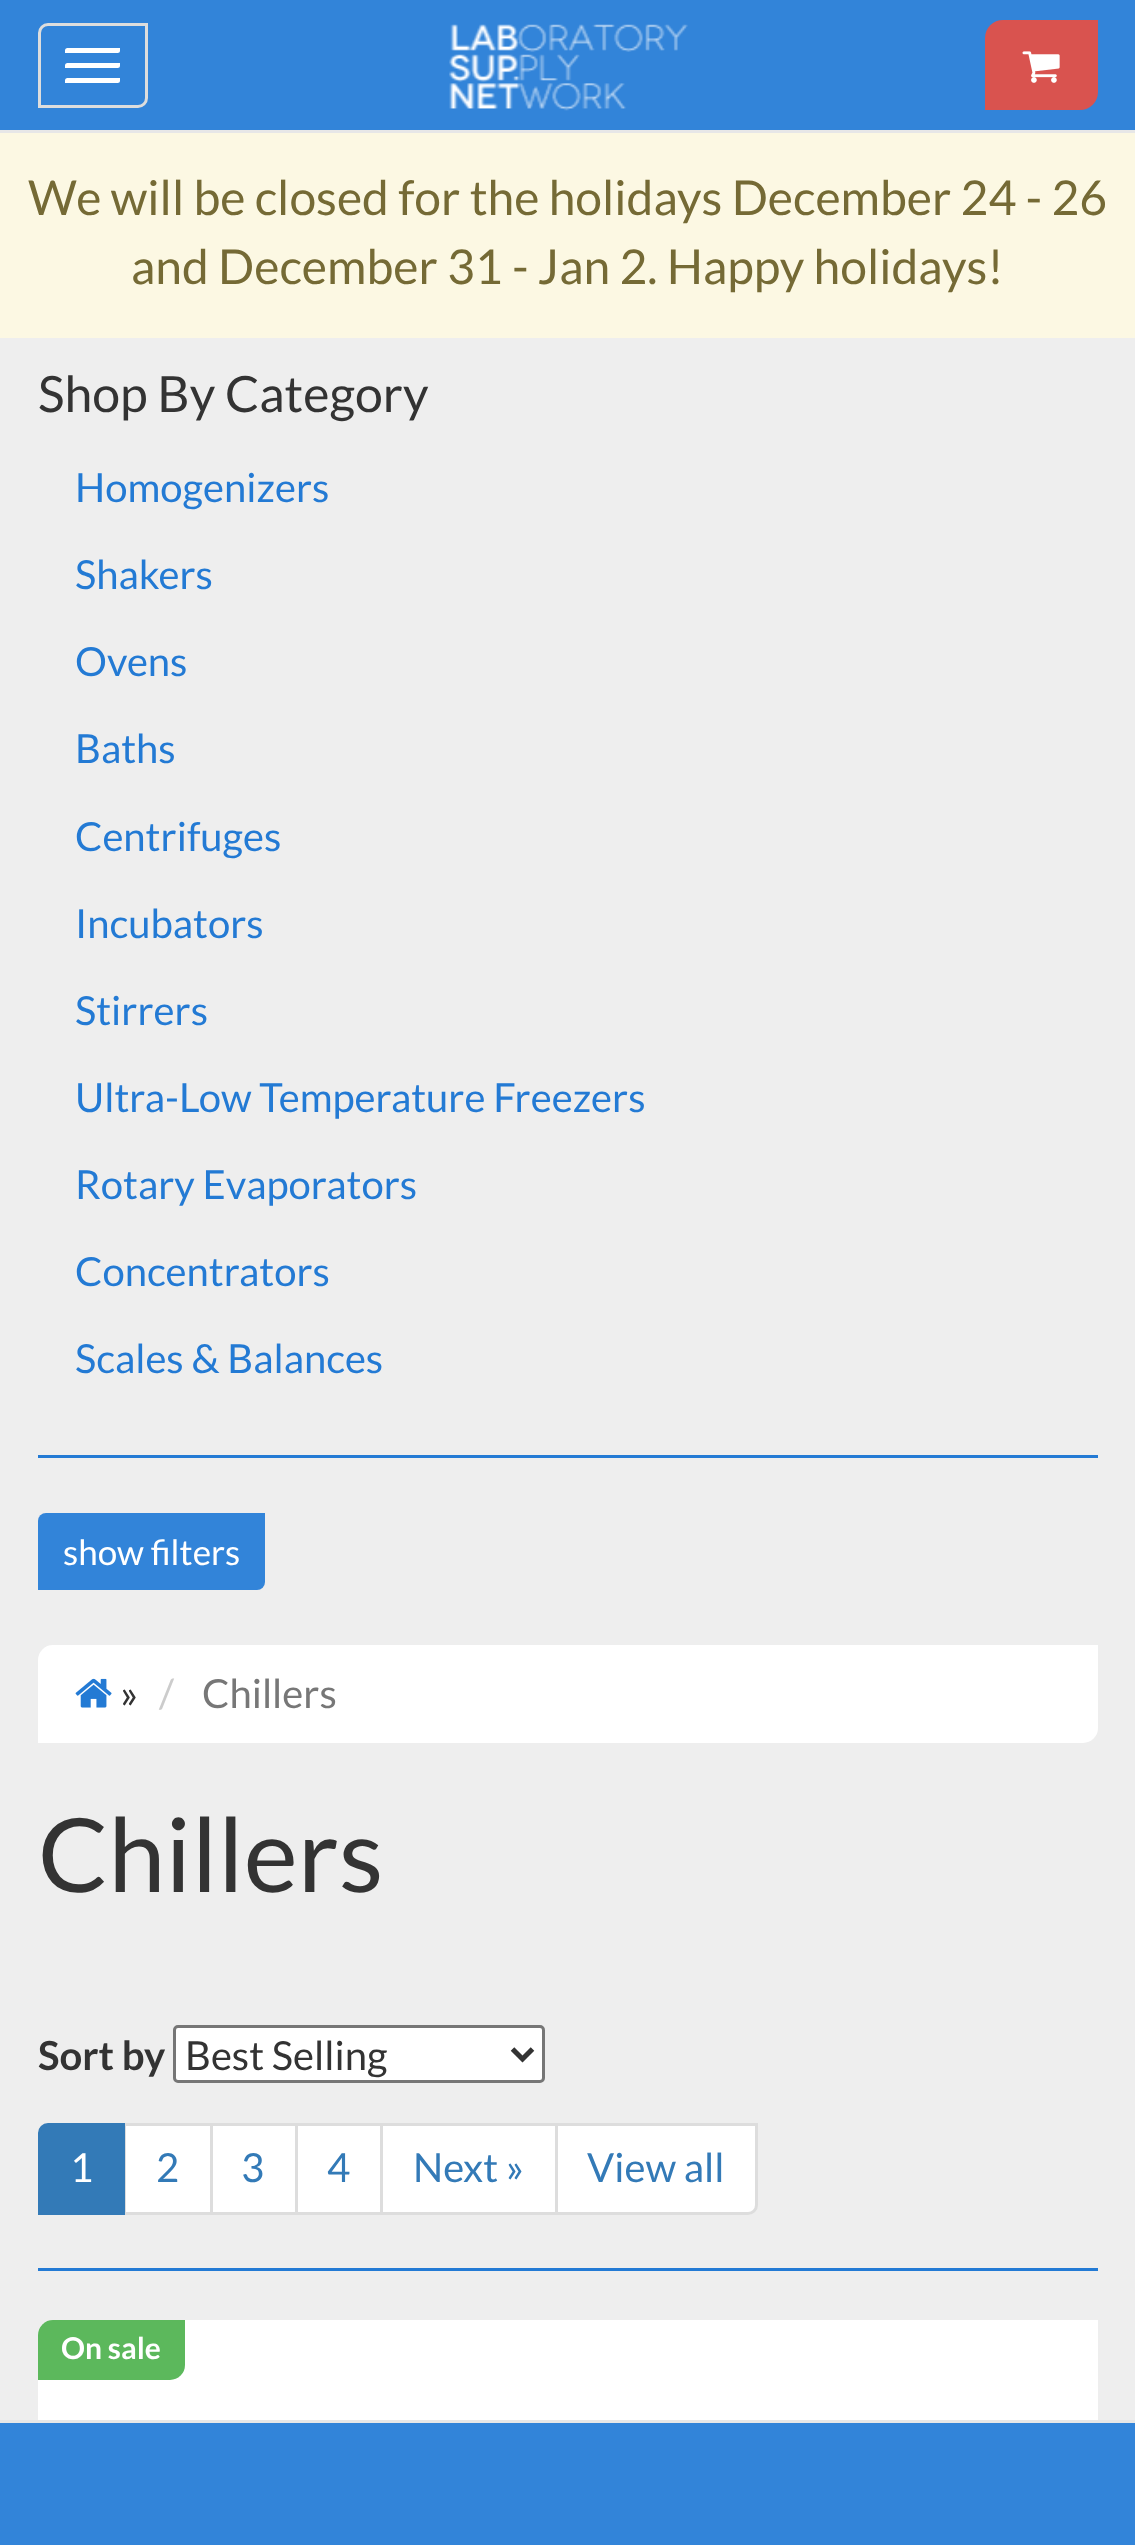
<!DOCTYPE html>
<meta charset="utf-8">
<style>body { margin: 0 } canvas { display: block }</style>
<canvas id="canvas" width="1135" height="2545"></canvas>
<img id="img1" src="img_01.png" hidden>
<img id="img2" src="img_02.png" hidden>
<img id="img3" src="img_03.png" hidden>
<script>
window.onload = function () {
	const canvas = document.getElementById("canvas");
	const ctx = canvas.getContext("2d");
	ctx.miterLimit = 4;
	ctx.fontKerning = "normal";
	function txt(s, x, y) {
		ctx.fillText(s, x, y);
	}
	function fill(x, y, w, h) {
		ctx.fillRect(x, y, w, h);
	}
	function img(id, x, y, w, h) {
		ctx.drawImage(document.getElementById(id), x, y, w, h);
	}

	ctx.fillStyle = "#EEEEEE";
	fill(0, 0, 1135, 2545);
	ctx.fillStyle = "#3284D9";
	fill(0, 0, 1135, 130);
	ctx.fillStyle = "#E7E7E7";
	fill(0, 130, 1135, 3);
	ctx.beginPath();
	ctx.roundRect(39.5, 24.5, 107, 82, [8.5, 0, 8.5, 0]);
	ctx.strokeStyle = "#DDDDDD";
	ctx.lineWidth = 3;
	ctx.stroke();
	ctx.fillStyle = "#FFFFFF";
	ctx.beginPath();
	ctx.roundRect(65, 48, 55, 5, [2.5, 0, 2.5, 0]);
	ctx.fill();
	ctx.beginPath();
	ctx.roundRect(65, 63, 55, 5, [2.5, 0, 2.5, 0]);
	ctx.fill();
	ctx.beginPath();
	ctx.roundRect(65, 78, 55, 5, [2.5, 0, 2.5, 0]);
	ctx.fill();
	img("img1", 449, 24, 239, 87);
	ctx.fillStyle = "#D9534F";
	ctx.beginPath();
	ctx.roundRect(985, 20, 113, 90, [18, 0, 18, 0]);
	ctx.fill();
	img("img2", 1022, 51, 38, 32);
	ctx.fillStyle = "#FCF8E3";
	fill(0, 133, 1135, 205);
	ctx.fillStyle = "#237AD4";
	fill(38, 1455, 1060, 3);
	ctx.fillStyle = "#3284D9";
	ctx.beginPath();
	ctx.roundRect(38, 1513, 227, 77, [8, 0, 8, 0]);
	ctx.fill();
	ctx.fillStyle = "#FFFFFF";
	ctx.beginPath();
	ctx.roundRect(38, 1645, 1060, 98, [15, 0, 15, 0]);
	ctx.fill();
	img("img3", 75, 1678, 37, 30);
	ctx.beginPath();
	ctx.roundRect(174.5, 2026.5, 369, 55, 3.5);
	ctx.fill();
	ctx.strokeStyle = "#767676";
	ctx.stroke();
	ctx.beginPath();
	ctx.moveTo(512.5, 2049);
	ctx.lineTo(522.5, 2059);
	ctx.lineTo(532.5, 2049);
	ctx.strokeStyle = "#333333";
	ctx.lineWidth = 5;
	ctx.stroke();
	ctx.beginPath();
	ctx.rect(124.5, 2124.5, 87, 89);
	ctx.fill();
	ctx.strokeStyle = "#DDDDDD";
	ctx.lineWidth = 3;
	ctx.stroke();
	ctx.fillStyle = "#337AB7";
	ctx.beginPath();
	ctx.roundRect(39.5, 2124.5, 84, 89, [8.5, 0, 0, 0]);
	ctx.fill();
	ctx.strokeStyle = "#337AB7";
	ctx.stroke();
	ctx.fillStyle = "#FFFFFF";
	ctx.beginPath();
	ctx.rect(211.5, 2124.5, 85, 89);
	ctx.fill();
	ctx.strokeStyle = "#DDDDDD";
	ctx.stroke();
	ctx.beginPath();
	ctx.rect(296.5, 2124.5, 85, 89);
	ctx.fill();
	ctx.stroke();
	ctx.beginPath();
	ctx.rect(381.5, 2124.5, 175, 89);
	ctx.fill();
	ctx.stroke();
	ctx.beginPath();
	ctx.roundRect(556.5, 2124.5, 200, 89, [0, 0, 8.5, 0]);
	ctx.fill();
	ctx.stroke();
	ctx.fillStyle = "#237AD4";
	fill(38, 2268, 1060, 3);
	ctx.fillStyle = "#FFFFFF";
	ctx.beginPath();
	ctx.moveTo(53, 2320);
	ctx.lineTo(1098, 2320);
	ctx.lineTo(1098, 2545);
	ctx.bezierCurveTo(1098, 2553.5, 1091.5, 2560, 1083, 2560);
	ctx.lineTo(38, 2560);
	ctx.lineTo(38, 2335);
	ctx.bezierCurveTo(38, 2326.5, 44.5, 2320, 53, 2320);
	ctx.closePath();
	ctx.fill();
	ctx.fillStyle = "#5CB85C";
	ctx.beginPath();
	ctx.roundRect(38, 2320, 147, 60, [15, 0, 15, 0]);
	ctx.fill();
	ctx.fillStyle = "#3284D9";
	fill(0, 2423, 1135, 122);
	ctx.fillStyle = "#E7E7E7";
	fill(0, 2420, 1135, 3);
	ctx.font = "48px Lato";
	ctx.fillStyle = "#756A35";
	txt("We will be closed for the holidays December 24 - 26", 28, 215);
	txt("and December 31 - Jan 2. Happy holidays!", 131, 284);
	ctx.font = "50px Lato";
	ctx.fillStyle = "#333333";
	txt("Shop By Category", 38, 412);
	ctx.font = "40px Lato";
	ctx.fillStyle = "#237AD4";
	txt("Homogenizers", 75, 502);
	txt("Shakers", 75, 589);
	txt("Ovens", 75, 676);
	txt("Baths", 75, 763);
	txt("Centrifuges", 75, 851);
	txt("Incubators", 75, 938);
	txt("Stirrers", 75, 1025);
	txt("Ultra-Low Temperature Freezers", 75, 1112);
	txt("Rotary Evaporators", 75, 1199);
	txt("Concentrators", 75, 1286);
	txt("Scales & Balances", 75, 1373);
	ctx.font = "35px Lato";
	ctx.fillStyle = "#FFFFFF";
	txt("show filters", 63, 1565);
	ctx.font = "40px Lato";
	ctx.fillStyle = "#333333";
	txt("»", 120, 1708);
	ctx.fillStyle = "#CCCCCC";
	txt("/", 159, 1708);
	ctx.fillStyle = "#777777";
	txt("Chillers", 202, 1708);
	ctx.font = "102.5px Lato";
	ctx.fillStyle = "#333333";
	txt("Chillers", 38, 1892);
	ctx.font = "bold 40px Lato";
	txt("Sort by", 38, 2070);
	ctx.font = "40px Lato";
	txt("Best Selling", 185, 2070);
	ctx.fillStyle = "#FFFFFF";
	txt("1", 70, 2182);
	ctx.fillStyle = "#337AB7";
	txt("2", 156, 2182);
	txt("3", 241, 2182);
	txt("4", 327, 2182);
	txt("Next »", 413, 2182);
	txt("View all", 587, 2182);
	ctx.font = "bold 30px Lato";
	ctx.fillStyle = "#FFFFFF";
	txt("On sale", 61, 2359);
};
</script>
